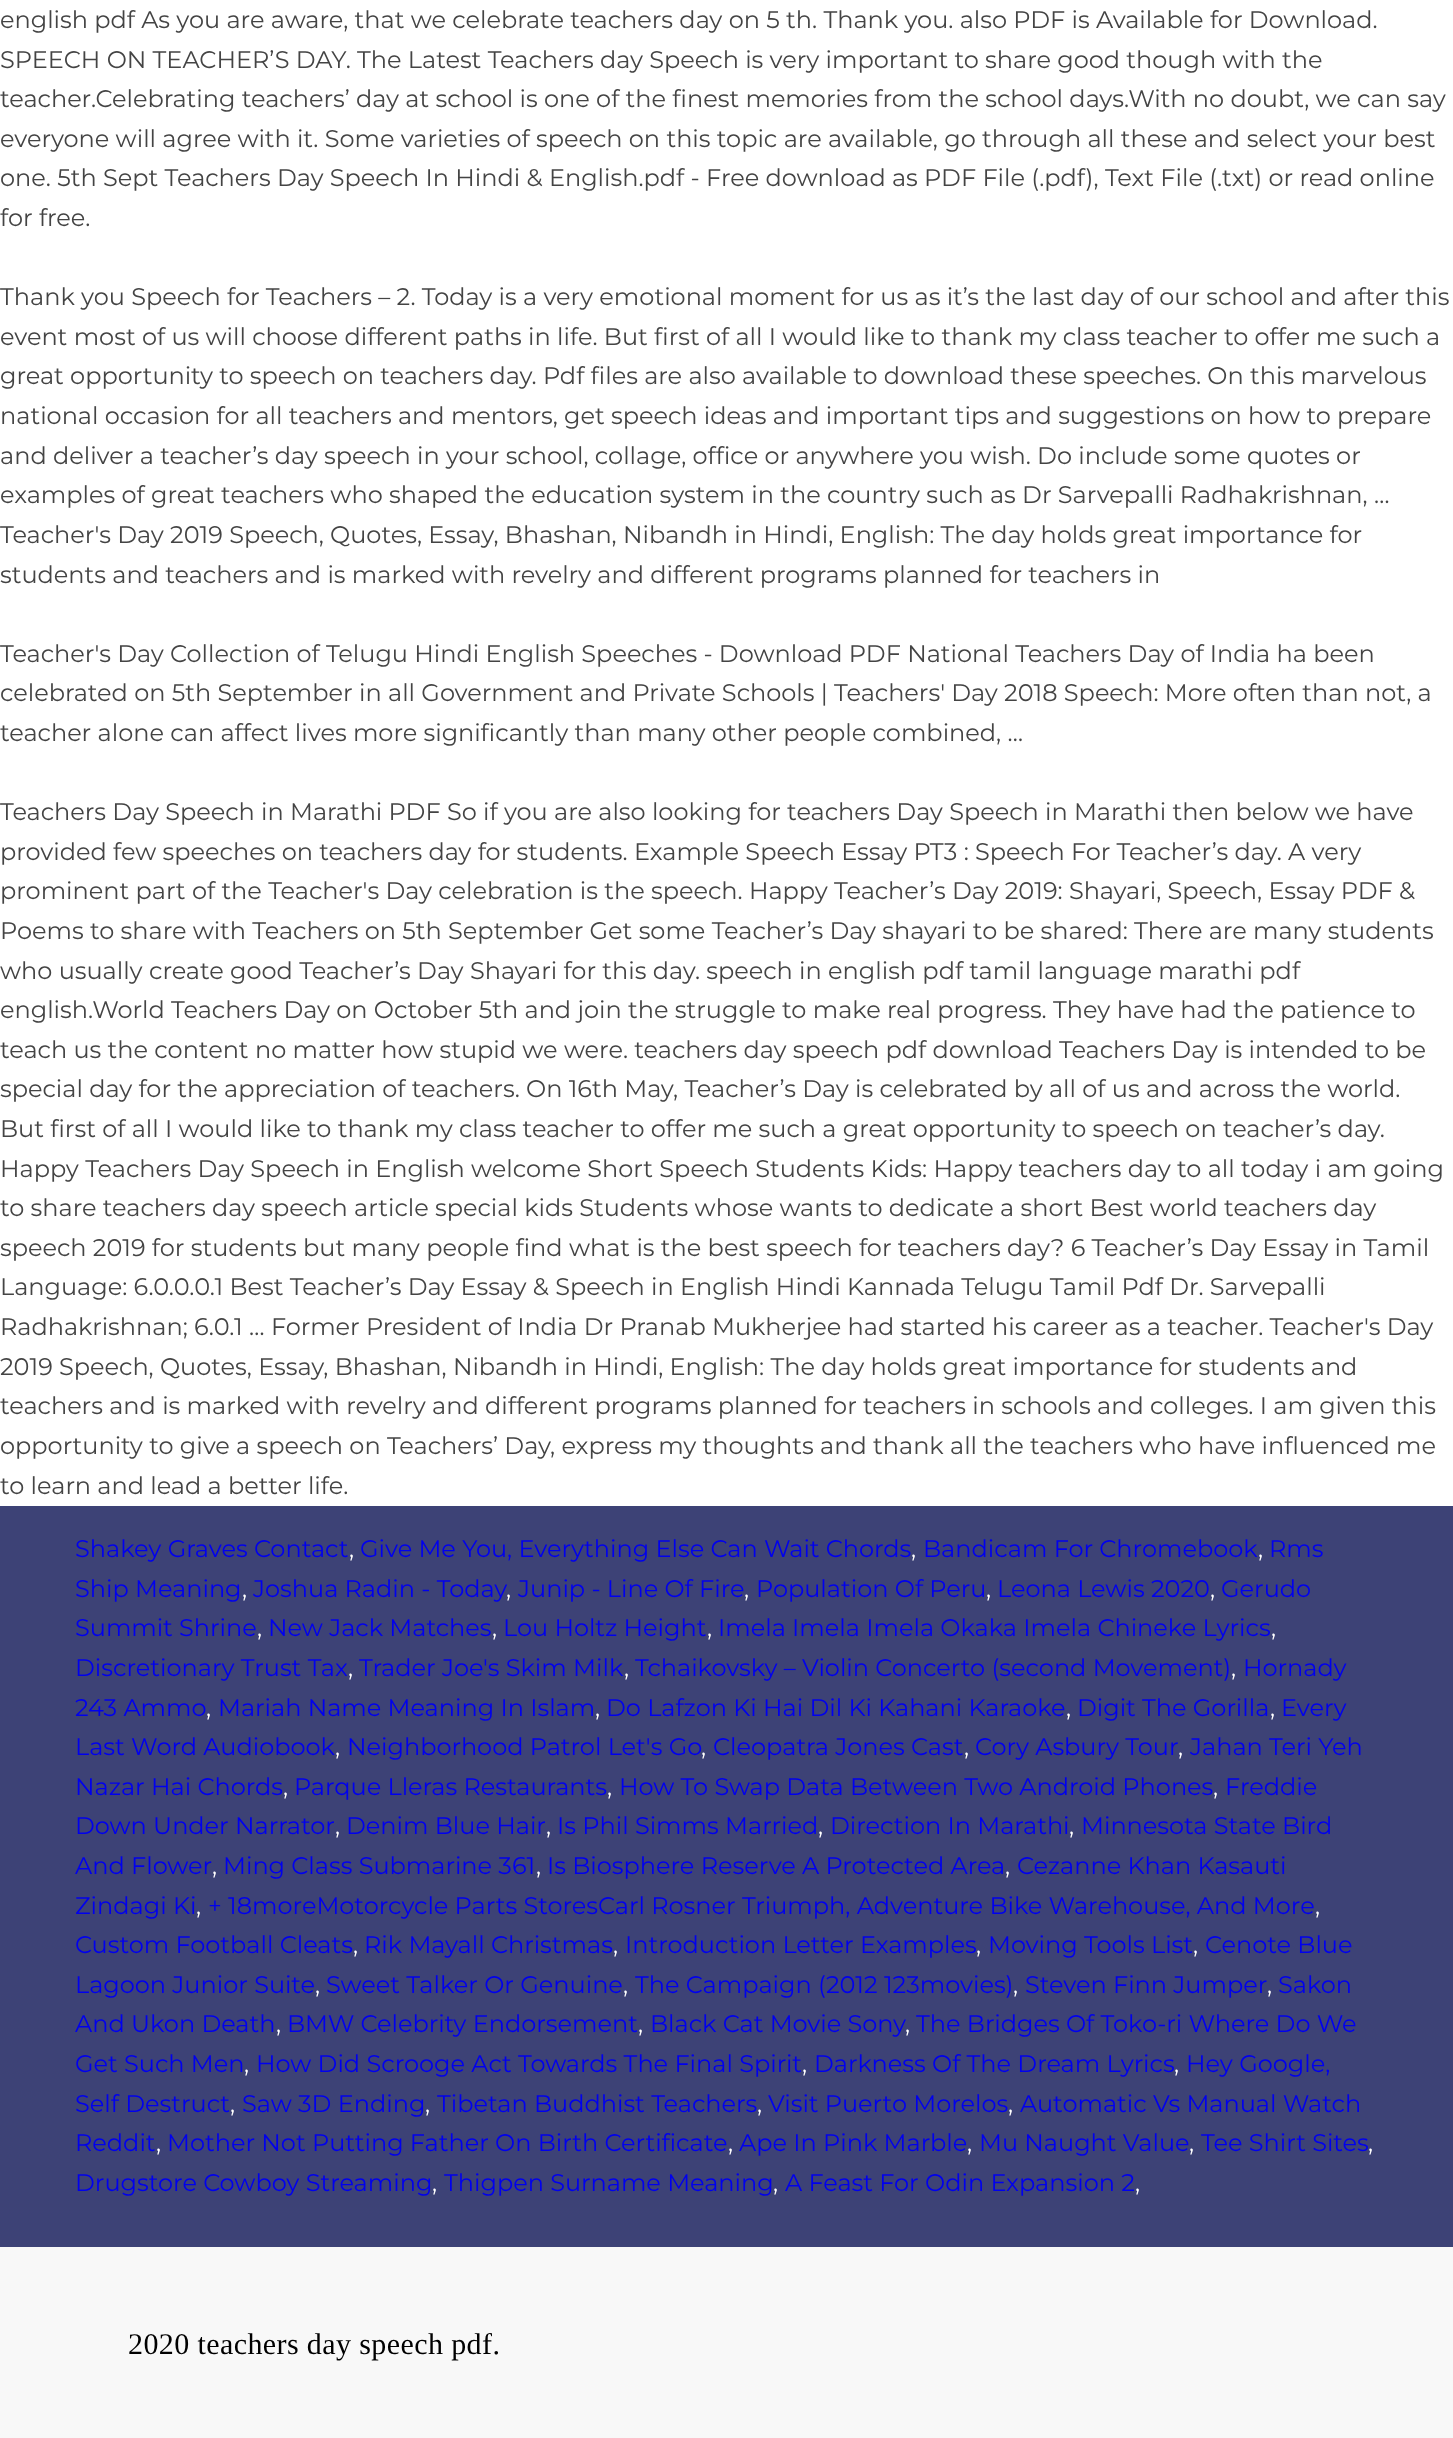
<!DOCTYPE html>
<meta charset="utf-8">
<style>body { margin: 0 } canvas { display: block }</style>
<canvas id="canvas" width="1453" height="2438"></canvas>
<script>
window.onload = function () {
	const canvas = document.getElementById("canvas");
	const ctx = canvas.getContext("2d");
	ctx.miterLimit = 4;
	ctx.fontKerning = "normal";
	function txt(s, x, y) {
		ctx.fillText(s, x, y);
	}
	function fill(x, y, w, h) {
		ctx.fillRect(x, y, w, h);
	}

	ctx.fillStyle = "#FFFFFF";
	fill(0, 0, 1453, 2438);
	ctx.fillStyle = "#3D4276";
	fill(0, 1506, 1453, 741);
	ctx.fillStyle = "#F8F8F8";
	fill(0, 2247, 1453, 191);
	ctx.font = "24px Montserrat";
	ctx.fillStyle = "#444444";
	txt("english pdf As you are aware, that we celebrate teachers day on 5 th. Thank you. also PDF is Available for Download.", 0, 28);
	txt("SPEECH ON TEACHER’S DAY. The Latest Teachers day Speech is very important to share good though with the", 0, 68);
	txt("teacher.Celebrating teachers’ day at school is one of the finest memories from the school days.With no doubt, we can say", 0, 107);
	txt("everyone will agree with it. Some varieties of speech on this topic are available, go through all these and select your best", 0, 147);
	txt("one. 5th Sept Teachers Day Speech In Hindi & English.pdf - Free download as PDF File (.pdf), Text File (.txt) or read online", 0, 186);
	txt("for free.", 0, 226);
	txt("Thank you Speech for Teachers – 2. Today is a very emotional moment for us as it’s the last day of our school and after this", 0, 305);
	txt("event most of us will choose different paths in life. But first of all I would like to thank my class teacher to offer me such a", 0, 345);
	txt("great opportunity to speech on teachers day. Pdf files are also available to download these speeches. On this marvelous", 0, 384);
	txt("national occasion for all teachers and mentors, get speech ideas and important tips and suggestions on how to prepare", 0, 424);
	txt("and deliver a teacher’s day speech in your school, collage, office or anywhere you wish. Do include some quotes or", 0, 464);
	txt("examples of great teachers who shaped the education system in the country such as Dr Sarvepalli Radhakrishnan, …", 0, 503);
	txt("Teacher's Day 2019 Speech, Quotes, Essay, Bhashan, Nibandh in Hindi, English: The day holds great importance for", 0, 543);
	txt("students and teachers and is marked with revelry and different programs planned for teachers in", 0, 583);
	txt("Teacher's Day Collection of Telugu Hindi English Speeches - Download PDF National Teachers Day of India ha been", 0, 662);
	txt("celebrated on 5th September in all Government and Private Schools | Teachers' Day 2018 Speech: More often than not, a", 0, 701);
	txt("teacher alone can affect lives more significantly than many other people combined, …", 0, 741);
	txt("Teachers Day Speech in Marathi PDF So if you are also looking for teachers Day Speech in Marathi then below we have", 0, 820);
	txt("provided few speeches on teachers day for students. Example Speech Essay PT3 : Speech For Teacher’s day. A very", 0, 860);
	txt("prominent part of the Teacher's Day celebration is the speech. Happy Teacher’s Day 2019: Shayari, Speech, Essay PDF &", 0, 899);
	txt("Poems to share with Teachers on 5th September Get some Teacher’s Day shayari to be shared: There are many students", 0, 939);
	txt("who usually create good Teacher’s Day Shayari for this day. speech in english pdf tamil language marathi pdf", 0, 979);
	txt("english.World Teachers Day on October 5th and join the struggle to make real progress. They have had the patience to", 0, 1018);
	txt("teach us the content no matter how stupid we were. teachers day speech pdf download Teachers Day is intended to be", 0, 1058);
	txt("special day for the appreciation of teachers. On 16th May, Teacher’s Day is celebrated by all of us and across the world.", 0, 1097);
	txt("But first of all I would like to thank my class teacher to offer me such a great opportunity to speech on teacher’s day.", 0, 1137);
	txt("Happy Teachers Day Speech in English welcome Short Speech Students Kids: Happy teachers day to all today i am going", 0, 1177);
	txt("to share teachers day speech article special kids Students whose wants to dedicate a short Best world teachers day", 0, 1216);
	txt("speech 2019 for students but many people find what is the best speech for teachers day? 6 Teacher’s Day Essay in Tamil", 0, 1256);
	txt("Language: 6.0.0.0.1 Best Teacher’s Day Essay & Speech in English Hindi Kannada Telugu Tamil Pdf Dr. Sarvepalli", 0, 1295);
	txt("Radhakrishnan; 6.0.1 … Former President of India Dr Pranab Mukherjee had started his career as a teacher. Teacher's Day", 0, 1335);
	txt("2019 Speech, Quotes, Essay, Bhashan, Nibandh in Hindi, English: The day holds great importance for students and", 0, 1375);
	txt("teachers and is marked with revelry and different programs planned for teachers in schools and colleges. I am given this", 0, 1414);
	txt("opportunity to give a speech on Teachers’ Day, express my thoughts and thank all the teachers who have influenced me", 0, 1454);
	txt("to learn and lead a better life.", 0, 1494);
	ctx.fillStyle = "#0000EE";
	txt("Shakey Graves Contact", 75, 1557);
	ctx.fillStyle = "#FFFFFF";
	txt(",", 349, 1557);
	ctx.fillStyle = "#0000EE";
	txt("Give Me You, Everything Else Can Wait Chords", 360, 1557);
	ctx.fillStyle = "#FFFFFF";
	txt(",", 911, 1557);
	ctx.fillStyle = "#0000EE";
	txt("Bandicam For Chromebook", 923, 1557);
	ctx.fillStyle = "#FFFFFF";
	txt(",", 1258, 1557);
	ctx.fillStyle = "#0000EE";
	txt("Rms", 1269, 1557);
	txt("Ship Meaning", 75, 1597);
	ctx.fillStyle = "#FFFFFF";
	txt(",", 242, 1597);
	ctx.fillStyle = "#0000EE";
	txt("Joshua Radin - Today", 253, 1597);
	ctx.fillStyle = "#FFFFFF";
	txt(",", 506, 1597);
	ctx.fillStyle = "#0000EE";
	txt("Junip - Line Of Fire", 518, 1597);
	ctx.fillStyle = "#FFFFFF";
	txt(",", 744, 1597);
	ctx.fillStyle = "#0000EE";
	txt("Population Of Peru", 756, 1597);
	ctx.fillStyle = "#FFFFFF";
	txt(",", 986, 1597);
	ctx.fillStyle = "#0000EE";
	txt("Leona Lewis 2020", 997, 1597);
	ctx.fillStyle = "#FFFFFF";
	txt(",", 1210, 1597);
	ctx.fillStyle = "#0000EE";
	txt("Gerudo", 1221, 1597);
	txt("Summit Shrine", 75, 1636);
	ctx.fillStyle = "#FFFFFF";
	txt(",", 257, 1636);
	ctx.fillStyle = "#0000EE";
	txt("New Jack Matches", 268, 1636);
	ctx.fillStyle = "#FFFFFF";
	txt(",", 492, 1636);
	ctx.fillStyle = "#0000EE";
	txt("Lou Holtz Height", 503, 1636);
	ctx.fillStyle = "#FFFFFF";
	txt(",", 707, 1636);
	ctx.fillStyle = "#0000EE";
	txt("Imela Imela Imela Okaka Imela Chineke Lyrics", 718, 1636);
	ctx.fillStyle = "#FFFFFF";
	txt(",", 1271, 1636);
	ctx.fillStyle = "#0000EE";
	txt("Discretionary Trust Tax", 75, 1676);
	ctx.fillStyle = "#FFFFFF";
	txt(",", 348, 1676);
	ctx.fillStyle = "#0000EE";
	txt("Trader Joe's Skim Milk", 359, 1676);
	ctx.fillStyle = "#FFFFFF";
	txt(",", 624, 1676);
	ctx.fillStyle = "#0000EE";
	txt("Tchaikovsky – Violin Concerto (second Movement)", 635, 1676);
	ctx.fillStyle = "#FFFFFF";
	txt(",", 1231, 1676);
	ctx.fillStyle = "#0000EE";
	txt("Hornady", 1243, 1676);
	txt("243 Ammo", 75, 1716);
	ctx.fillStyle = "#FFFFFF";
	txt(",", 206, 1716);
	ctx.fillStyle = "#0000EE";
	txt("Mariah Name Meaning In Islam", 218, 1716);
	ctx.fillStyle = "#FFFFFF";
	txt(",", 595, 1716);
	ctx.fillStyle = "#0000EE";
	txt("Do Lafzon Ki Hai Dil Ki Kahani Karaoke", 606, 1716);
	ctx.fillStyle = "#FFFFFF";
	txt(",", 1066, 1716);
	ctx.fillStyle = "#0000EE";
	txt("Digit The Gorilla", 1077, 1716);
	ctx.fillStyle = "#FFFFFF";
	txt(",", 1270, 1716);
	ctx.fillStyle = "#0000EE";
	txt("Every", 1281, 1716);
	txt("Last Word Audiobook", 75, 1755);
	ctx.fillStyle = "#FFFFFF";
	txt(",", 335, 1755);
	ctx.fillStyle = "#0000EE";
	txt("Neighborhood Patrol Let's Go", 347, 1755);
	ctx.fillStyle = "#FFFFFF";
	txt(",", 701, 1755);
	ctx.fillStyle = "#0000EE";
	txt("Cleopatra Jones Cast", 713, 1755);
	ctx.fillStyle = "#FFFFFF";
	txt(",", 964, 1755);
	ctx.fillStyle = "#0000EE";
	txt("Cory Asbury Tour", 975, 1755);
	ctx.fillStyle = "#FFFFFF";
	txt(",", 1178, 1755);
	ctx.fillStyle = "#0000EE";
	txt("Jahan Teri Yeh", 1190, 1755);
	txt("Nazar Hai Chords", 75, 1795);
	ctx.fillStyle = "#FFFFFF";
	txt(",", 283, 1795);
	ctx.fillStyle = "#0000EE";
	txt("Parque Lleras Restaurants", 294, 1795);
	ctx.fillStyle = "#FFFFFF";
	txt(",", 607, 1795);
	ctx.fillStyle = "#0000EE";
	txt("How To Swap Data Between Two Android Phones", 619, 1795);
	ctx.fillStyle = "#FFFFFF";
	txt(",", 1213, 1795);
	ctx.fillStyle = "#0000EE";
	txt("Freddie", 1225, 1795);
	txt("Down Under Narrator", 75, 1834);
	ctx.fillStyle = "#FFFFFF";
	txt(",", 335, 1834);
	ctx.fillStyle = "#0000EE";
	txt("Denim Blue Hair", 346, 1834);
	ctx.fillStyle = "#FFFFFF";
	txt(",", 546, 1834);
	ctx.fillStyle = "#0000EE";
	txt("Is Phil Simms Married", 557, 1834);
	ctx.fillStyle = "#FFFFFF";
	txt(",", 818, 1834);
	ctx.fillStyle = "#0000EE";
	txt("Direction In Marathi", 830, 1834);
	ctx.fillStyle = "#FFFFFF";
	txt(",", 1069, 1834);
	ctx.fillStyle = "#0000EE";
	txt("Minnesota State Bird", 1081, 1834);
	txt("And Flower", 75, 1874);
	ctx.fillStyle = "#FFFFFF";
	txt(",", 212, 1874);
	ctx.fillStyle = "#0000EE";
	txt("Ming Class Submarine 361", 223, 1874);
	ctx.fillStyle = "#FFFFFF";
	txt(",", 536, 1874);
	ctx.fillStyle = "#0000EE";
	txt("Is Biosphere Reserve A Protected Area", 547, 1874);
	ctx.fillStyle = "#FFFFFF";
	txt(",", 1005, 1874);
	ctx.fillStyle = "#0000EE";
	txt("Cezanne Khan Kasauti", 1017, 1874);
	txt("Zindagi Ki", 75, 1914);
	ctx.fillStyle = "#FFFFFF";
	txt(",", 196, 1914);
	ctx.fillStyle = "#0000EE";
	txt("+ 18moreMotorcycle Parts StoresCarl Rosner Triumph, Adventure Bike Warehouse, And More", 208, 1914);
	ctx.fillStyle = "#FFFFFF";
	txt(",", 1315, 1914);
	ctx.fillStyle = "#0000EE";
	txt("Custom Football Cleats", 75, 1953);
	ctx.fillStyle = "#FFFFFF";
	txt(",", 353, 1953);
	ctx.fillStyle = "#0000EE";
	txt("Rik Mayall Christmas", 364, 1953);
	ctx.fillStyle = "#FFFFFF";
	txt(",", 613, 1953);
	ctx.fillStyle = "#0000EE";
	txt("Introduction Letter Examples", 625, 1953);
	ctx.fillStyle = "#FFFFFF";
	txt(",", 976, 1953);
	ctx.fillStyle = "#0000EE";
	txt("Moving Tools List", 988, 1953);
	ctx.fillStyle = "#FFFFFF";
	txt(",", 1193, 1953);
	ctx.fillStyle = "#0000EE";
	txt("Cenote Blue", 1205, 1953);
	txt("Lagoon Junior Suite", 75, 1993);
	ctx.fillStyle = "#FFFFFF";
	txt(",", 315, 1993);
	ctx.fillStyle = "#0000EE";
	txt("Sweet Talker Or Genuine", 326, 1993);
	ctx.fillStyle = "#FFFFFF";
	txt(",", 623, 1993);
	ctx.fillStyle = "#0000EE";
	txt("The Campaign (2012 123movies)", 635, 1993);
	ctx.fillStyle = "#FFFFFF";
	txt(",", 1013, 1993);
	ctx.fillStyle = "#0000EE";
	txt("Steven Finn Jumper", 1025, 1993);
	ctx.fillStyle = "#FFFFFF";
	txt(",", 1267, 1993);
	ctx.fillStyle = "#0000EE";
	txt("Sakon", 1278, 1993);
	txt("And Ukon Death", 75, 2032);
	ctx.fillStyle = "#FFFFFF";
	txt(",", 276, 2032);
	ctx.fillStyle = "#0000EE";
	txt("BMW Celebrity Endorsement", 287, 2032);
	ctx.fillStyle = "#FFFFFF";
	txt(",", 638, 2032);
	ctx.fillStyle = "#0000EE";
	txt("Black Cat Movie Sony", 650, 2032);
	ctx.fillStyle = "#FFFFFF";
	txt(",", 905, 2032);
	ctx.fillStyle = "#0000EE";
	txt("The Bridges Of Toko-ri Where Do We", 916, 2032);
	txt("Get Such Men", 75, 2072);
	ctx.fillStyle = "#FFFFFF";
	txt(",", 244, 2072);
	ctx.fillStyle = "#0000EE";
	txt("How Did Scrooge Act Towards The Final Spirit", 256, 2072);
	ctx.fillStyle = "#FFFFFF";
	txt(",", 802, 2072);
	ctx.fillStyle = "#0000EE";
	txt("Darkness Of The Dream Lyrics", 814, 2072);
	ctx.fillStyle = "#FFFFFF";
	txt(",", 1174, 2072);
	ctx.fillStyle = "#0000EE";
	txt("Hey Google,", 1186, 2072);
	txt("Self Destruct", 75, 2112);
	ctx.fillStyle = "#FFFFFF";
	txt(",", 230, 2112);
	ctx.fillStyle = "#0000EE";
	txt("Saw 3D Ending", 242, 2112);
	ctx.fillStyle = "#FFFFFF";
	txt(",", 425, 2112);
	ctx.fillStyle = "#0000EE";
	txt("Tibetan Buddhist Teachers", 437, 2112);
	ctx.fillStyle = "#FFFFFF";
	txt(",", 757, 2112);
	ctx.fillStyle = "#0000EE";
	txt("Visit Puerto Morelos", 768, 2112);
	ctx.fillStyle = "#FFFFFF";
	txt(",", 1008, 2112);
	ctx.fillStyle = "#0000EE";
	txt("Automatic Vs Manual Watch", 1020, 2112);
	txt("Reddit", 75, 2151);
	ctx.fillStyle = "#FFFFFF";
	txt(",", 156, 2151);
	ctx.fillStyle = "#0000EE";
	txt("Mother Not Putting Father On Birth Certificate", 167, 2151);
	ctx.fillStyle = "#FFFFFF";
	txt(",", 728, 2151);
	ctx.fillStyle = "#0000EE";
	txt("Ape In Pink Marble", 739, 2151);
	ctx.fillStyle = "#FFFFFF";
	txt(",", 967, 2151);
	ctx.fillStyle = "#0000EE";
	txt("Mu Naught Value", 979, 2151);
	ctx.fillStyle = "#FFFFFF";
	txt(",", 1189, 2151);
	ctx.fillStyle = "#0000EE";
	txt("Tee Shirt Sites", 1201, 2151);
	ctx.fillStyle = "#FFFFFF";
	txt(",", 1368, 2151);
	ctx.fillStyle = "#0000EE";
	txt("Drugstore Cowboy Streaming", 75, 2191);
	ctx.fillStyle = "#FFFFFF";
	txt(",", 432, 2191);
	ctx.fillStyle = "#0000EE";
	txt("Thigpen Surname Meaning", 444, 2191);
	ctx.fillStyle = "#FFFFFF";
	txt(",", 773, 2191);
	ctx.fillStyle = "#0000EE";
	txt("A Feast For Odin Expansion 2", 785, 2191);
	ctx.fillStyle = "#FFFFFF";
	txt(",", 1135, 2191);
	ctx.letterSpacing = "0.4px";
	ctx.font = "30px Liberation Serif";
	ctx.fillStyle = "#000000";
	txt("2020 teachers day speech pdf.", 128, 2354);
};
</script>
